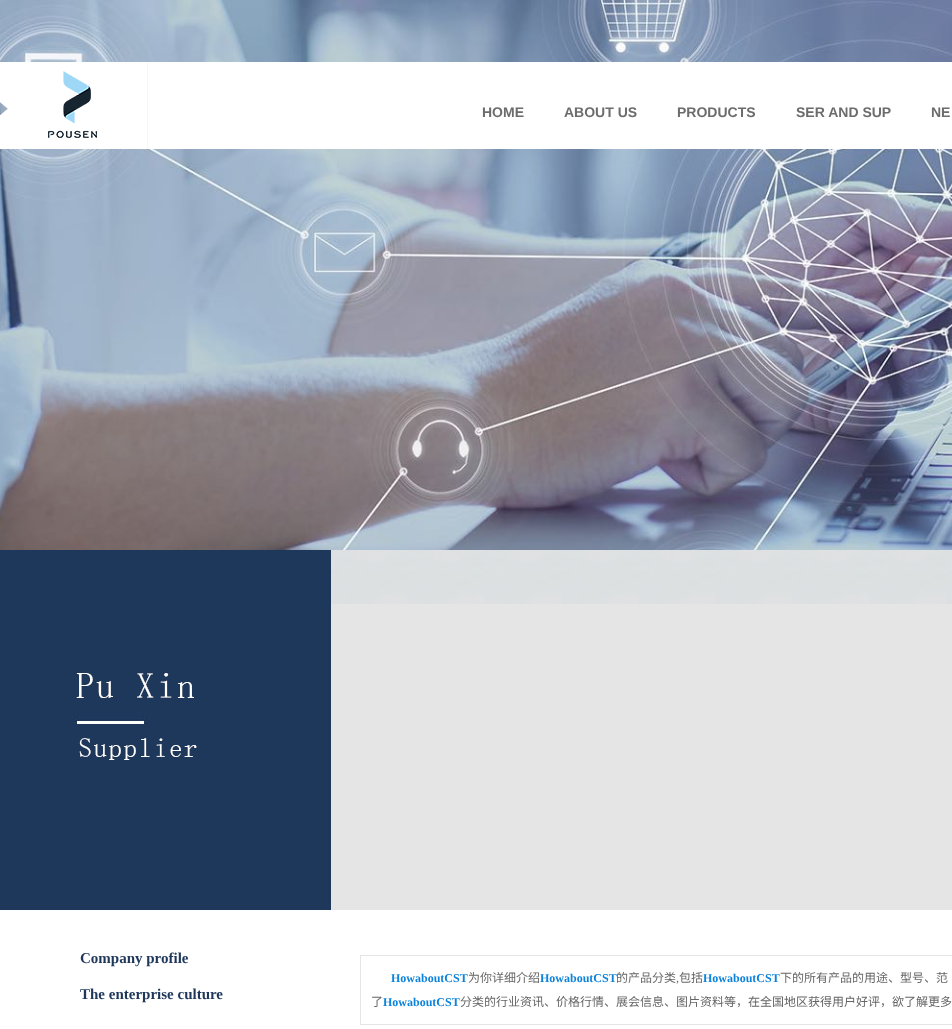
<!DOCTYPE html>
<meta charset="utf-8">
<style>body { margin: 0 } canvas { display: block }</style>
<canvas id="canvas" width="952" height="1029"></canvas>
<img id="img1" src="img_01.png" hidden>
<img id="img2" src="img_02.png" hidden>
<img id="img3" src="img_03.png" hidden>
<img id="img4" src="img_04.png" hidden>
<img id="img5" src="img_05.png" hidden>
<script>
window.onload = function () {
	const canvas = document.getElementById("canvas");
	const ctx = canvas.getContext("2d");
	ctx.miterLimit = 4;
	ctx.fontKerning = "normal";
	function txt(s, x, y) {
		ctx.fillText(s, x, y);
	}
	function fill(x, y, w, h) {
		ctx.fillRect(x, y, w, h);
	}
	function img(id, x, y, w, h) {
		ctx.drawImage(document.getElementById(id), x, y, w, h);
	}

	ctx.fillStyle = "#FFFFFF";
	fill(0, 0, 952, 1029);
	img("img1", 0, 0, 952, 550);
	img("img2", 0, 62, 952, 87);
	img("img3", 48, 71, 49, 67);
	ctx.fillStyle = "#E5E5E5";
	fill(331, 550, 621, 360);
	img("img4", 331, 550, 621, 54);
	img("img5", 0, 550, 331, 360);
	ctx.strokeStyle = "#E5E5E5";
	ctx.strokeRect(360.5, 955.5, 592, 69);
	ctx.font = "bold 14px Liberation Sans";
	ctx.fillStyle = "#6C6C6C";
	txt("HOME", 482, 117);
	txt("ABOUT US", 564, 117);
	txt("PRODUCTS", 677, 117);
	txt("SER AND SUP", 796, 117);
	txt("NE", 931, 117);
	ctx.font = "bold 15px Liberation Serif";
	ctx.fillStyle = "#1E375B";
	txt("Company profile", 80, 963);
	txt("The enterprise culture", 80, 999);
	ctx.font = "bold 12px Liberation Serif";
	ctx.fillStyle = "#0D83DA";
	txt("HowaboutCST", 391, 982);
	ctx.font = "12px Noto Sans CJK SC";
	ctx.fillStyle = "#666666";
	txt("为你详细介绍", 468, 982);
	ctx.font = "bold 12px Liberation Serif";
	ctx.fillStyle = "#0D83DA";
	txt("HowaboutCST", 540, 982);
	ctx.font = "12px Noto Sans CJK SC";
	ctx.fillStyle = "#666666";
	txt("的产品分类", 616, 982);
	ctx.font = "12px Liberation Serif";
	txt(",", 676, 982);
	ctx.font = "12px Noto Sans CJK SC";
	txt("包括", 679, 982);
	ctx.font = "bold 12px Liberation Serif";
	ctx.fillStyle = "#0D83DA";
	txt("HowaboutCST", 703, 982);
	ctx.font = "12px Noto Sans CJK SC";
	ctx.fillStyle = "#666666";
	txt("下的所有产品的用途、型号、范", 780, 982);
	txt("了", 371, 1006);
	ctx.font = "bold 12px Liberation Serif";
	ctx.fillStyle = "#0D83DA";
	txt("HowaboutCST", 383, 1006);
	ctx.font = "12px Noto Sans CJK SC";
	ctx.fillStyle = "#666666";
	txt("分类的行业资讯、价格行情、展会信息、图片资料等，在全国地区获得用户好评，欲了解更多", 460, 1006);
};
</script>
